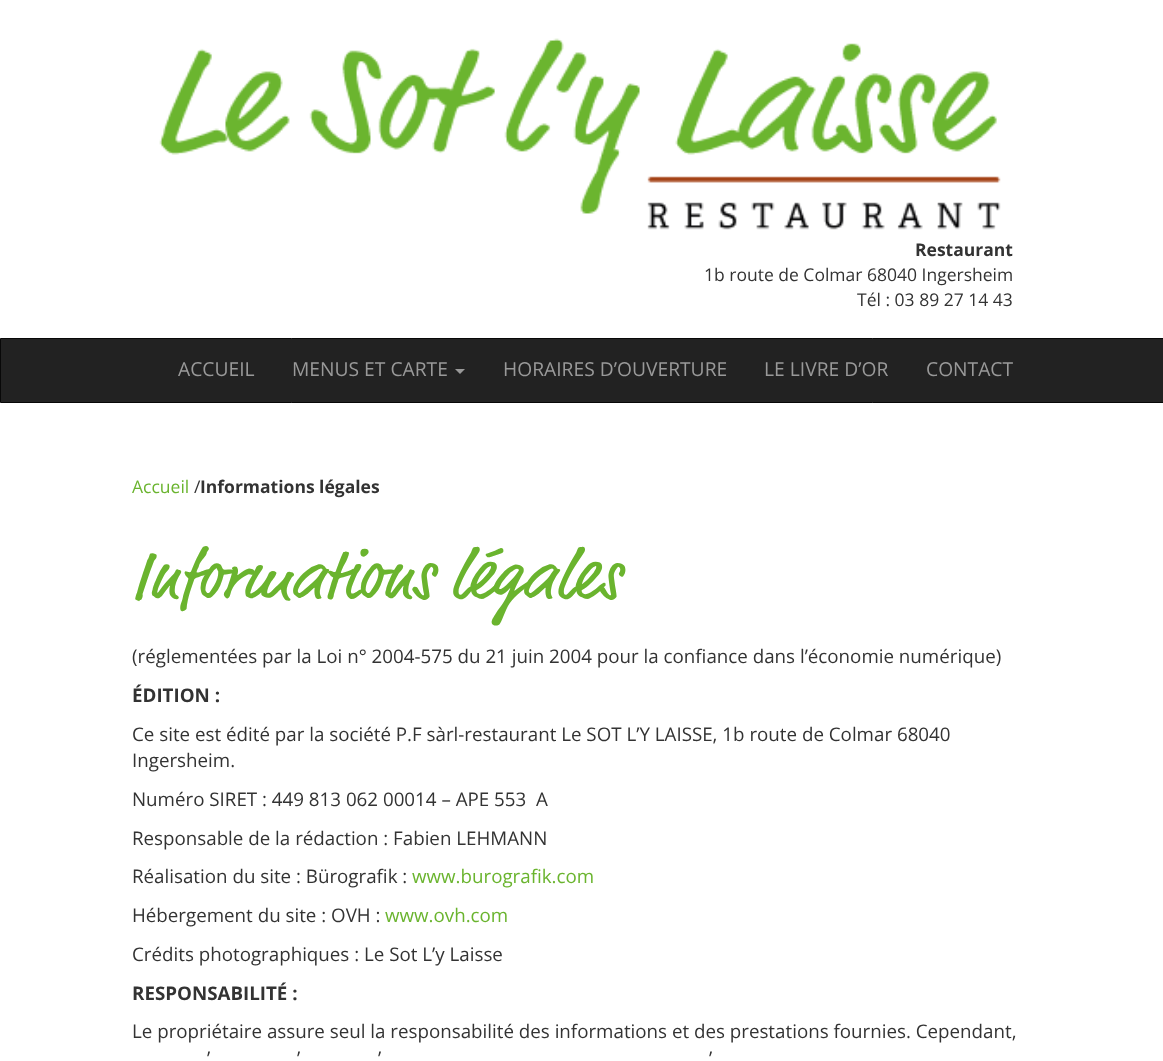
<!DOCTYPE html>
<meta charset="utf-8">
<style>body { margin: 0 } canvas { display: block }</style>
<canvas id="canvas" width="1163" height="1061"></canvas>
<img id="img1" src="img_01.png" hidden>
<script>
window.onload = function () {
	const canvas = document.getElementById("canvas");
	const ctx = canvas.getContext("2d");
	ctx.miterLimit = 4;
	ctx.fontKerning = "normal";
	function txt(s, x, y) {
		ctx.fillText(s, x, y);
	}
	function fill(x, y, w, h) {
		ctx.fillRect(x, y, w, h);
	}
	function img(id, x, y, w, h) {
		ctx.drawImage(document.getElementById(id), x, y, w, h);
	}

	ctx.fillStyle = "#FFFFFF";
	fill(0, 0, 1163, 1061);
	img("img1", 159, 38, 842, 192);
	ctx.fillStyle = "#222222";
	ctx.beginPath();
	ctx.rect(0.5, 338.5, 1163, 64);
	ctx.fill();
	ctx.strokeStyle = "#080808";
	ctx.stroke();
	ctx.fillStyle = "#999999";
	ctx.beginPath();
	ctx.moveTo(455, 369);
	ctx.lineTo(465, 369);
	ctx.lineTo(460, 374);
	ctx.closePath();
	ctx.fill();
	ctx.font = "bold 17.5px Open Sans";
	ctx.fillStyle = "#333333";
	txt("Restaurant", 915, 256);
	ctx.font = "17.5px Open Sans";
	txt("1b route de Colmar 68040 Ingersheim", 704, 281);
	txt("Tél : 03 89 27 14 43", 857, 306);
	ctx.font = "19.25px Open Sans";
	ctx.fillStyle = "#999999";
	txt("ACCUEIL", 178, 376);
	txt("MENUS ET CARTE", 292, 376);
	txt("HORAIRES D’OUVERTURE", 503, 376);
	txt("LE LIVRE D’OR", 764, 376);
	txt("CONTACT", 926, 376);
	ctx.font = "17.5px Open Sans";
	ctx.fillStyle = "#6AB42E";
	txt("Accueil", 132, 493);
	ctx.fillStyle = "#333333";
	txt("/", 194, 493);
	ctx.font = "bold 17.5px Open Sans";
	txt("Informations légales", 200, 493);
	ctx.font = "70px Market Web";
	ctx.fillStyle = "#6AB42E";
	txt("Informations légales", 132, 598);
	ctx.font = "18.75px Open Sans";
	ctx.fillStyle = "#333333";
	txt("(réglementées par la Loi n° 2004-575 du 21 juin 2004 pour la confiance dans l’économie numérique)", 132, 663);
	ctx.font = "bold 18.75px Open Sans";
	txt("ÉDITION :", 132, 702);
	ctx.font = "18.75px Open Sans";
	txt("Ce site est édité par la société P.F sàrl-restaurant Le SOT L’Y LAISSE, 1b route de Colmar 68040", 132, 741);
	txt("Ingersheim.", 132, 767);
	txt("Numéro SIRET : 449 813 062 00014 – APE 553  A", 132, 806);
	txt("Responsable de la rédaction : Fabien LEHMANN", 132, 845);
	txt("Réalisation du site : Bürografik :", 132, 883);
	ctx.fillStyle = "#6AB42E";
	txt("www.burografik.com", 412, 883);
	ctx.fillStyle = "#333333";
	txt("Hébergement du site : OVH :", 132, 922);
	ctx.fillStyle = "#6AB42E";
	txt("www.ovh.com", 385, 922);
	ctx.fillStyle = "#333333";
	txt("Crédits photographiques : Le Sot L’y Laisse", 132, 961);
	ctx.font = "bold 18.75px Open Sans";
	txt("RESPONSABILITÉ :", 132, 1000);
	ctx.font = "18.75px Open Sans";
	txt("Le propriétaire assure seul la responsabilité des informations et des prestations fournies. Cependant,", 132, 1038);
	txt("’", 207, 1065);
	txt("’", 297, 1065);
	txt("’", 378, 1065);
	txt("’", 709, 1065);
};
</script>
